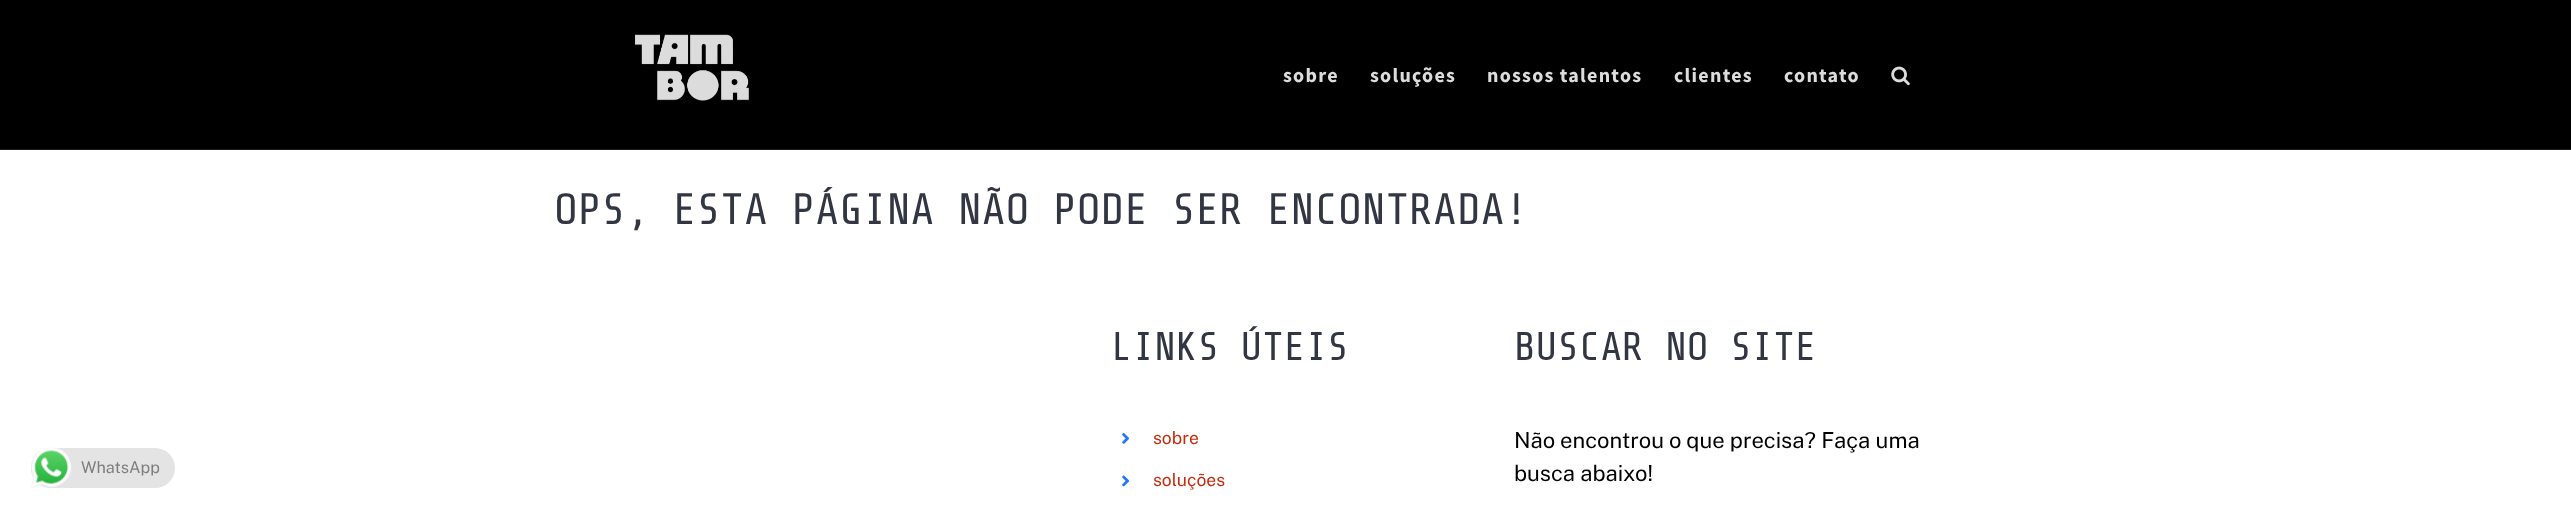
<!DOCTYPE html>
<meta charset="utf-8">
<style>body { margin: 0 } canvas { display: block }</style>
<canvas id="canvas" width="2571" height="506"></canvas>
<img id="img1" src="img_01.png" hidden>
<img id="img2" src="img_02.png" hidden>
<img id="img3" src="img_03.png" hidden>
<img id="img4" src="img_04.png" hidden>
<img id="img5" src="img_05.png" hidden>
<script>
window.onload = function () {
	const canvas = document.getElementById("canvas");
	const ctx = canvas.getContext("2d");
	ctx.miterLimit = 4;
	ctx.fontKerning = "normal";
	function txt(s, x, y) {
		ctx.fillText(s, x, y);
	}
	function fill(x, y, w, h) {
		ctx.fillRect(x, y, w, h);
	}
	function round(x, y, w, h, r) {
		ctx.beginPath();
		ctx.roundRect(x, y, w, h, r);
		ctx.fill();
	}
	function img(id, x, y, w, h) {
		ctx.drawImage(document.getElementById(id), x, y, w, h);
	}

	ctx.fillStyle = "#FFFFFF";
	fill(0, 0, 2571, 506);
	ctx.fillStyle = "#E4E4E4";
	round(31, 448, 144, 40, 20);
	img("img1", 31, 447, 41, 41);
	ctx.fillStyle = "#000000";
	fill(0, 0, 2571, 149);
	ctx.fillStyle = "#1A1A1A";
	fill(0, 149, 2571, 1);
	img("img2", 634, 34, 115, 67);
	img("img3", 1891, 66, 19, 20);
	img("img4", 1122, 433, 8, 11);
	img("img5", 1122, 475, 8, 12);
	ctx.font = "16.25px Public Sans";
	ctx.fillStyle = "#7F7D7D";
	txt("WhatsApp", 81, 473);
	ctx.letterSpacing = "1.25px";
	ctx.font = "bold 20px Source Sans Pro";
	ctx.fillStyle = "#DCDCDC";
	txt("sobre", 1283, 82);
	txt("soluções", 1370, 82);
	txt("nossos talentos", 1487, 82);
	txt("clientes", 1674, 82);
	txt("contato", 1784, 82);
	ctx.letterSpacing = "0px";
	ctx.font = "44px Share Tech Mono";
	ctx.fillStyle = "#323643";
	txt("OPS, ESTA PÁGINA NÃO PODE SER ENCONTRADA!", 554, 224);
	ctx.font = "40px Share Tech Mono";
	txt("LINKS ÚTEIS", 1111, 360);
	ctx.font = "17.5px Public Sans";
	ctx.fillStyle = "#C72A0B";
	txt("sobre", 1153, 444);
	txt("soluções", 1153, 486);
	ctx.font = "40px Share Tech Mono";
	ctx.fillStyle = "#323643";
	txt("BUSCAR NO SITE", 1514, 360);
	ctx.font = "22px Public Sans";
	ctx.fillStyle = "#000000";
	txt("Não encontrou o que precisa? Faça uma", 1514, 448);
	txt("busca abaixo!", 1514, 481);
};
</script>
